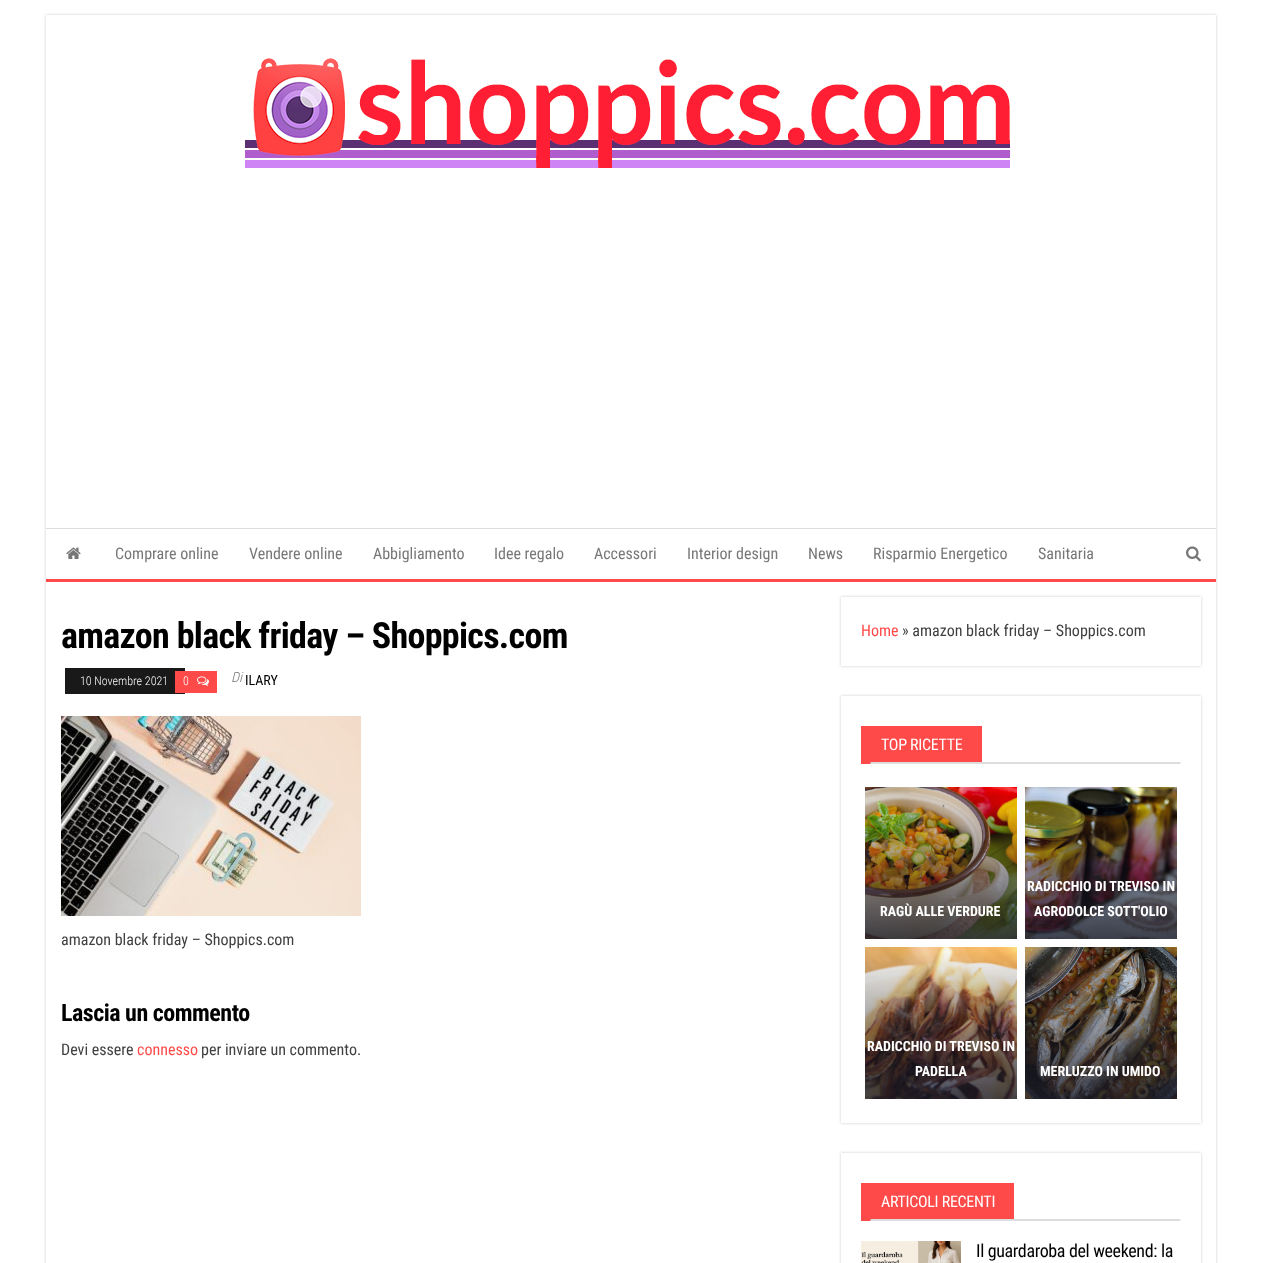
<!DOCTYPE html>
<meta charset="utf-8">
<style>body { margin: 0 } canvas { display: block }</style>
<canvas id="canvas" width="1261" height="1263"></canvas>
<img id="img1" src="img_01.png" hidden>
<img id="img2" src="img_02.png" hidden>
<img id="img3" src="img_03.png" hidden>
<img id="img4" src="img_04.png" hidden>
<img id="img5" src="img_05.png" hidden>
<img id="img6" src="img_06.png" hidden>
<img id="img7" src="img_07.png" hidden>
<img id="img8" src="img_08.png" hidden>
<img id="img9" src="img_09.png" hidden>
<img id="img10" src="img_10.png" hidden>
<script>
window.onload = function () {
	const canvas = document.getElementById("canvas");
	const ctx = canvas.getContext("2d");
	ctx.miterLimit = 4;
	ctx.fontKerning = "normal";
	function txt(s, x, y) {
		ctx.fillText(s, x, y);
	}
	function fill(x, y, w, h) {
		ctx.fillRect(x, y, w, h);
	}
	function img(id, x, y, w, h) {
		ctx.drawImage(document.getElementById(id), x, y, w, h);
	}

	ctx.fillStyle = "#FFFFFF";
	fill(0, 0, 1261, 1263);
	ctx.save();
	ctx.beginPath();
	ctx.moveTo(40, 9);
	ctx.lineTo(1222, 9);
	ctx.lineTo(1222, 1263);
	ctx.lineTo(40, 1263);
	ctx.closePath();
	ctx.moveTo(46, 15);
	ctx.lineTo(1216, 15);
	ctx.lineTo(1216, 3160);
	ctx.lineTo(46, 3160);
	ctx.closePath();
	ctx.clip("evenodd");
	ctx.fillStyle = "#CACACA";
	ctx.filter = "blur(1.5px)";
	ctx.beginPath();
	ctx.rect(46, 15, 1170, 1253);
	ctx.fill();
	ctx.filter = "none";
	ctx.restore();
	img("img1", 245, 58, 765, 110);
	ctx.fillStyle = "#DDDDDD";
	fill(46, 528, 1170, 1);
	ctx.fillStyle = "#FE4A49";
	fill(46, 579, 1170, 3);
	img("img2", 66, 547, 15, 12);
	img("img3", 1186, 546, 15, 16);
	ctx.fillStyle = "#191919";
	fill(65, 668, 120, 26);
	ctx.fillStyle = "#FE4A49";
	fill(175, 671, 42, 22);
	img("img4", 197, 676, 12, 10);
	img("img5", 61, 716, 300, 200);
	ctx.save();
	ctx.beginPath();
	ctx.moveTo(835, 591);
	ctx.lineTo(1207, 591);
	ctx.lineTo(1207, 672);
	ctx.lineTo(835, 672);
	ctx.closePath();
	ctx.moveTo(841, 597);
	ctx.lineTo(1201, 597);
	ctx.lineTo(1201, 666);
	ctx.lineTo(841, 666);
	ctx.closePath();
	ctx.clip("evenodd");
	ctx.fillStyle = "#CACACA";
	ctx.filter = "blur(1.5px)";
	ctx.beginPath();
	ctx.rect(841, 597, 360, 69);
	ctx.fill();
	ctx.filter = "none";
	ctx.restore();
	ctx.save();
	ctx.beginPath();
	ctx.moveTo(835, 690);
	ctx.lineTo(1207, 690);
	ctx.lineTo(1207, 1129);
	ctx.lineTo(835, 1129);
	ctx.closePath();
	ctx.moveTo(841, 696);
	ctx.lineTo(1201, 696);
	ctx.lineTo(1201, 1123);
	ctx.lineTo(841, 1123);
	ctx.closePath();
	ctx.clip("evenodd");
	ctx.fillStyle = "#CACACA";
	ctx.filter = "blur(1.5px)";
	ctx.beginPath();
	ctx.rect(841, 696, 360, 427);
	ctx.fill();
	ctx.filter = "none";
	ctx.restore();
	fill(861, 726, 121, 38);
	ctx.fillStyle = "#DDDDDD";
	ctx.beginPath();
	ctx.moveTo(871, 762);
	ctx.lineTo(1181, 762);
	ctx.lineTo(1180, 764);
	ctx.lineTo(870, 764);
	ctx.closePath();
	ctx.fill();
	img("img6", 865, 787, 152, 152);
	img("img7", 1025, 787, 152, 152);
	img("img8", 865, 947, 152, 152);
	img("img9", 1025, 947, 152, 152);
	ctx.save();
	ctx.beginPath();
	ctx.moveTo(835, 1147);
	ctx.lineTo(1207, 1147);
	ctx.lineTo(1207, 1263);
	ctx.lineTo(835, 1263);
	ctx.closePath();
	ctx.moveTo(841, 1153);
	ctx.lineTo(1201, 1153);
	ctx.lineTo(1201, 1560);
	ctx.lineTo(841, 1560);
	ctx.closePath();
	ctx.clip("evenodd");
	ctx.fillStyle = "#CACACA";
	ctx.filter = "blur(1.5px)";
	ctx.beginPath();
	ctx.rect(841, 1153, 360, 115);
	ctx.fill();
	ctx.filter = "none";
	ctx.restore();
	ctx.fillStyle = "#FE4A49";
	fill(861, 1183, 153, 38);
	ctx.fillStyle = "#DDDDDD";
	ctx.beginPath();
	ctx.moveTo(871, 1219);
	ctx.lineTo(1181, 1219);
	ctx.lineTo(1180, 1221);
	ctx.lineTo(870, 1221);
	ctx.closePath();
	ctx.fill();
	img("img10", 861, 1241, 100, 22);
	ctx.font = "16px Roboto Condensed";
	ctx.fillStyle = "#777777";
	txt("Comprare online", 115, 559);
	txt("Vendere online", 249, 559);
	txt("Abbigliamento", 373, 559);
	txt("Idee regalo", 494, 559);
	txt("Accessori", 594, 559);
	txt("Interior design", 687, 559);
	txt("News", 808, 559);
	txt("Risparmio Energetico", 873, 559);
	txt("Sanitaria", 1038, 559);
	ctx.letterSpacing = "-0.7px";
	ctx.font = "bold 36px Roboto Condensed";
	ctx.fillStyle = "#000000";
	txt("amazon black friday – Shoppics.com", 61, 648);
	ctx.letterSpacing = "0px";
	ctx.font = "300 12px Roboto Condensed";
	ctx.fillStyle = "#FFFFFF";
	txt("10 Novembre 2021", 80, 685);
	txt("0", 183, 685);
	ctx.font = "italic 300 14px Roboto Condensed";
	ctx.fillStyle = "#777777";
	txt("Di", 231, 682);
	ctx.font = "14px Roboto Condensed";
	ctx.fillStyle = "#000000";
	txt("ILARY", 245, 685);
	ctx.font = "16px Roboto Condensed";
	ctx.fillStyle = "#404040";
	txt("amazon black friday – Shoppics.com", 61, 945);
	ctx.letterSpacing = "-0.5px";
	ctx.font = "bold 24px Roboto Condensed";
	ctx.fillStyle = "#000000";
	txt("Lascia un commento", 61, 1021);
	ctx.letterSpacing = "0px";
	ctx.font = "16px Roboto Condensed";
	ctx.fillStyle = "#404040";
	txt("Devi essere", 61, 1055);
	ctx.fillStyle = "#FE4A49";
	txt("connesso", 137, 1055);
	ctx.fillStyle = "#404040";
	txt("per inviare un commento.", 201, 1055);
	ctx.fillStyle = "#FE4A49";
	txt("Home", 861, 636);
	ctx.fillStyle = "#404040";
	txt("» amazon black friday – Shoppics.com", 902, 636);
	ctx.letterSpacing = "-0.3px";
	ctx.fillStyle = "#FFFFFF";
	txt("TOP RICETTE", 881, 750);
	ctx.letterSpacing = "0px";
	ctx.font = "bold 14px Roboto Condensed";
	txt("RAGÙ ALLE VERDURE", 880, 916);
	txt("RADICCHIO DI TREVISO IN", 1027, 891);
	txt("AGRODOLCE SOTT'OLIO", 1034, 916);
	txt("RADICCHIO DI TREVISO IN", 867, 1051);
	txt("PADELLA", 915, 1076);
	txt("MERLUZZO IN UMIDO", 1040, 1076);
	ctx.letterSpacing = "-0.3px";
	ctx.font = "16px Roboto Condensed";
	txt("ARTICOLI RECENTI", 881, 1207);
	ctx.letterSpacing = "-0.35px";
	ctx.font = "18px Roboto Condensed";
	ctx.fillStyle = "#000000";
	txt("Il guardaroba del weekend: la", 976, 1257);
};
</script>
